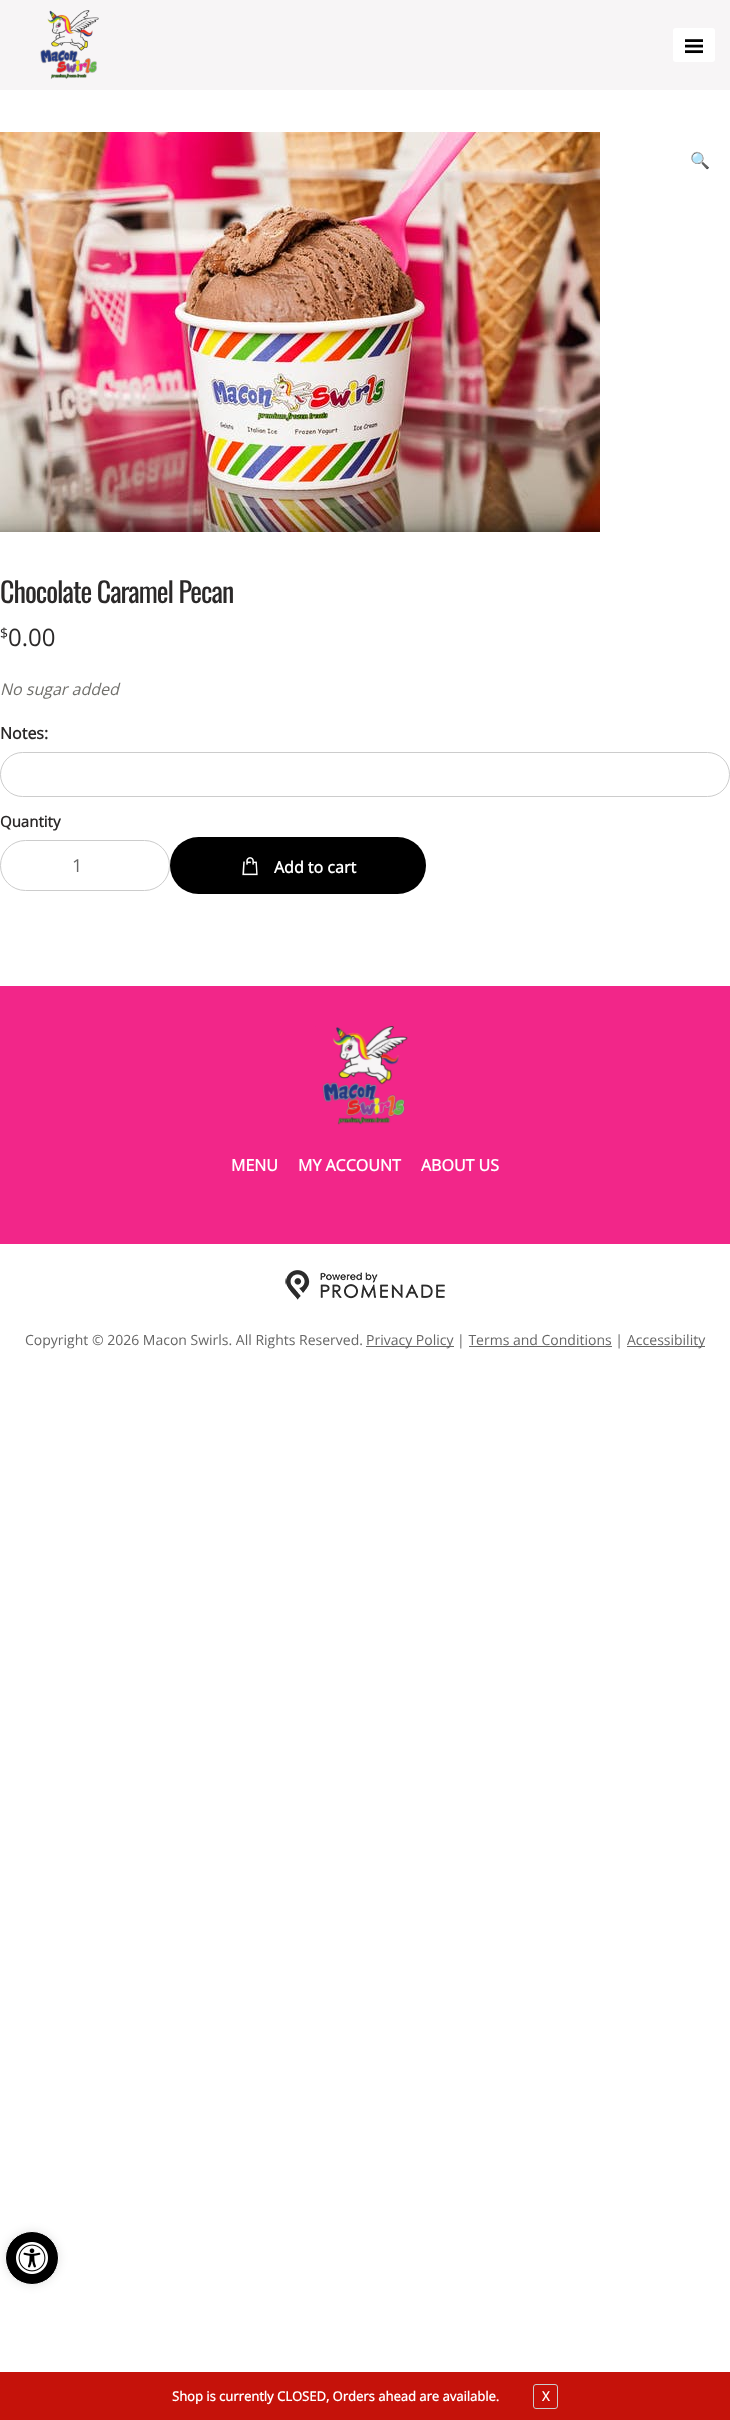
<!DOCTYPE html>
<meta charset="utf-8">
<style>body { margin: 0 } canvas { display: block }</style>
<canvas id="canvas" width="730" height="2420"></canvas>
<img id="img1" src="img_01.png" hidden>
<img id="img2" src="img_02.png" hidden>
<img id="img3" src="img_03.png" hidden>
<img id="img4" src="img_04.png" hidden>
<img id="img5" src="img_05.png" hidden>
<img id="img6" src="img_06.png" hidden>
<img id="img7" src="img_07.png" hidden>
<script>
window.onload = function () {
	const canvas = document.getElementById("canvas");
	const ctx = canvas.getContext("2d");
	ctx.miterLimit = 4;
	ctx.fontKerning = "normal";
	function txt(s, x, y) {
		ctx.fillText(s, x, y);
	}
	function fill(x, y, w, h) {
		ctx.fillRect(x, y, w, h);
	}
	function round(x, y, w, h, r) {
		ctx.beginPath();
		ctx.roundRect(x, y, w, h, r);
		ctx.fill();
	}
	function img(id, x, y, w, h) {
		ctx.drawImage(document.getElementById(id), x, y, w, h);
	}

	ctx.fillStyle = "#FFFFFF";
	fill(0, 0, 730, 2420);
	ctx.fillStyle = "#F7F5F6";
	fill(0, 0, 730, 90);
	img("img1", 40, 10, 59, 69);
	ctx.fillStyle = "#FFFFFF";
	round(673, 28, 42, 34, 3);
	img("img2", 685, 39, 18, 15);
	img("img3", 0, 132, 600, 400);
	ctx.beginPath();
	ctx.roundRect(0.5, 752.5, 729, 44, 22);
	ctx.strokeStyle = "#CCCCCC";
	ctx.stroke();
	ctx.beginPath();
	ctx.roundRect(0.5, 840.5, 169, 50, 25);
	ctx.stroke();
	ctx.fillStyle = "#000000";
	round(170, 837, 256, 57, 28.5);
	img("img4", 242, 857, 16, 19);
	ctx.fillStyle = "#F22689";
	fill(0, 986, 730, 258);
	img("img5", 315, 1026, 93, 99);
	img("img6", 285, 1270, 160, 30);
	ctx.fillStyle = "#666666";
	fill(366, 1346, 88, 1);
	fill(627, 1346, 78, 1);
	fill(469, 1346, 143, 1);
	ctx.fillStyle = "rgba(0, 0, 0, 0.1)";
	ctx.filter = "blur(5px)";
	ctx.beginPath();
	ctx.roundRect(5, 2231, 54, 54, 27);
	ctx.fill();
	ctx.filter = "none";
	ctx.fillStyle = "#000000";
	ctx.beginPath();
	ctx.arc(32, 2258, 26.5, 0, Math.PI * 2);
	ctx.fill();
	ctx.strokeStyle = "#FFFFFF";
	ctx.stroke();
	img("img7", 16, 2242, 32, 32);
	ctx.fillStyle = "#C5120A";
	fill(0, 2372, 730, 48);
	ctx.beginPath();
	ctx.roundRect(533.5, 2384.5, 24, 24, 2.5);
	ctx.strokeStyle = "#CCCCCC";
	ctx.stroke();
	ctx.font = "16px Noto Color Emoji";
	ctx.fillStyle = "#2B2929";
	txt("🔍", 690, 166);
	ctx.letterSpacing = "-1px";
	ctx.font = "28px Oswald";
	txt("Chocolate Caramel Pecan", 0, 603);
	ctx.letterSpacing = "0px";
	ctx.font = "14px Open Sans";
	txt("$", 0, 638);
	ctx.font = "24px Open Sans";
	txt("0.00", 8, 646);
	ctx.font = "italic 16px Open Sans";
	ctx.fillStyle = "#71706C";
	txt("No sugar added", 0, 695);
	ctx.font = "bold 16px Open Sans";
	ctx.fillStyle = "#2B2929";
	txt("Notes:", 0, 739);
	ctx.font = "bold 15px Open Sans";
	txt("Quantity", 0, 827);
	ctx.font = "18px Open Sans";
	ctx.fillStyle = "#666666";
	txt("1", 72, 872);
	ctx.font = "bold 16px Open Sans";
	ctx.fillStyle = "#FFFFFF";
	txt("Add to cart", 274, 873);
	txt("MENU", 231, 1171);
	txt("MY ACCOUNT", 298, 1171);
	txt("ABOUT US", 421, 1171);
	ctx.font = "14px Open Sans";
	ctx.fillStyle = "#666666";
	txt("Copyright © 2026 Macon Swirls. All Rights Reserved.", 25, 1345);
	txt("Privacy Policy | Terms and Conditions |", 366, 1345);
	txt("Accessibility", 627, 1345);
	ctx.font = "bold 13px Open Sans";
	ctx.fillStyle = "#FFFFFF";
	txt("Shop is currently CLOSED, Orders ahead are available.", 172, 2401);
	txt("X", 542, 2401);
};
</script>
